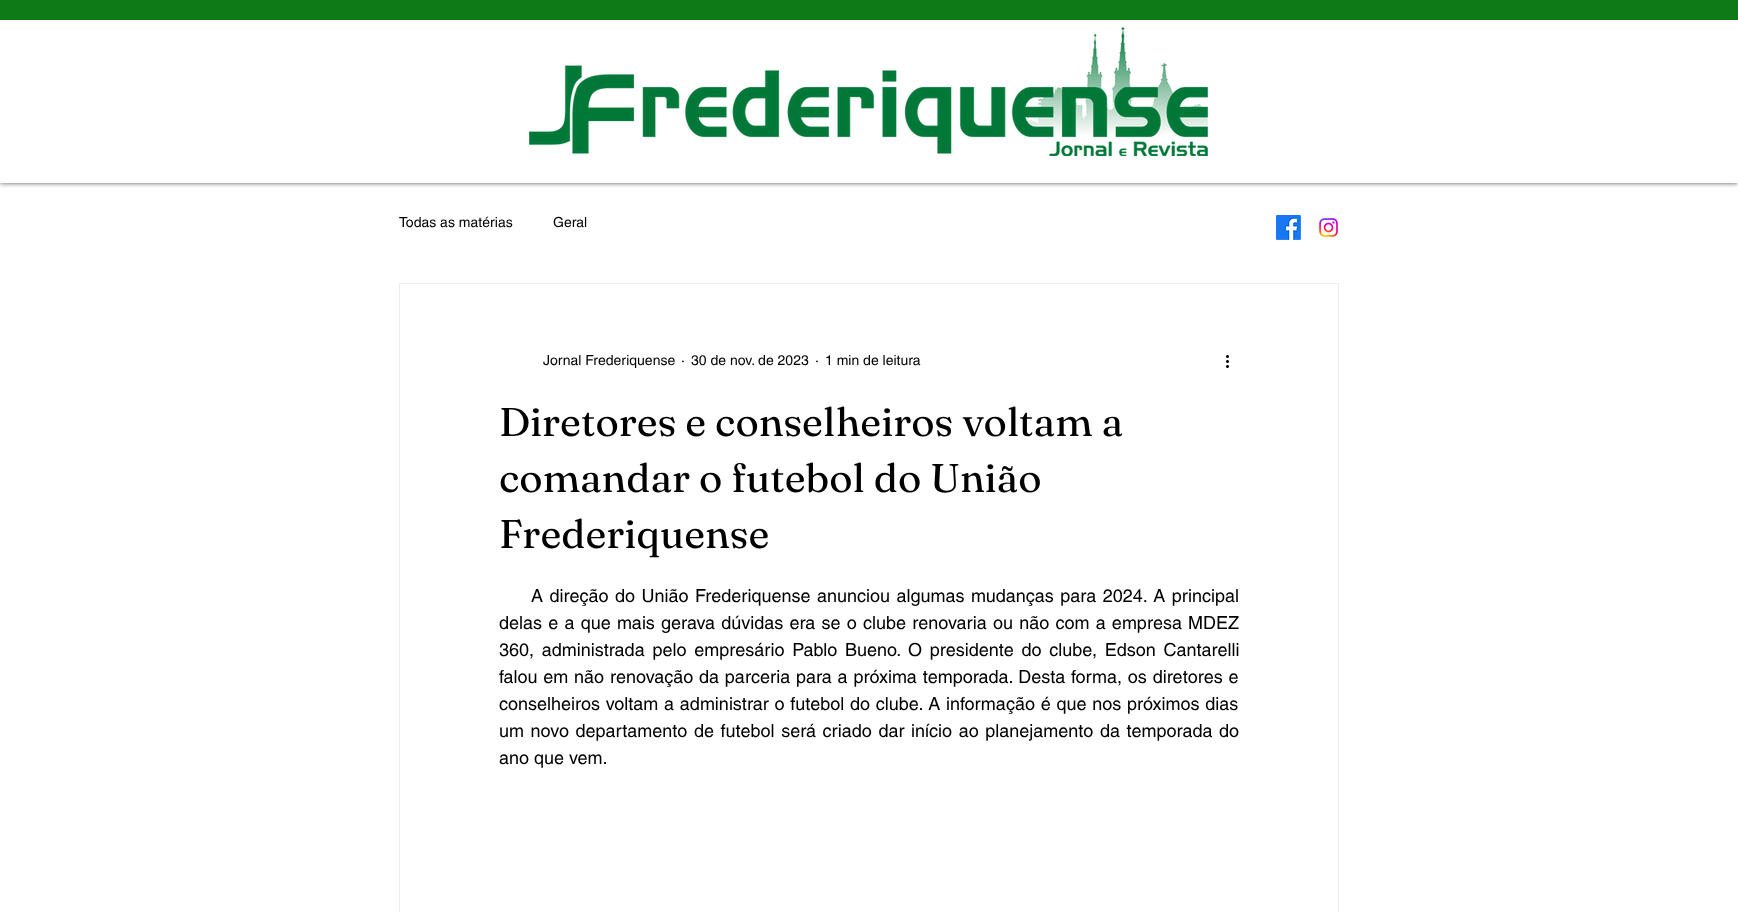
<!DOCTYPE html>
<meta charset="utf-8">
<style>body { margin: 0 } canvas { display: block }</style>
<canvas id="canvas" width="1738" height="912"></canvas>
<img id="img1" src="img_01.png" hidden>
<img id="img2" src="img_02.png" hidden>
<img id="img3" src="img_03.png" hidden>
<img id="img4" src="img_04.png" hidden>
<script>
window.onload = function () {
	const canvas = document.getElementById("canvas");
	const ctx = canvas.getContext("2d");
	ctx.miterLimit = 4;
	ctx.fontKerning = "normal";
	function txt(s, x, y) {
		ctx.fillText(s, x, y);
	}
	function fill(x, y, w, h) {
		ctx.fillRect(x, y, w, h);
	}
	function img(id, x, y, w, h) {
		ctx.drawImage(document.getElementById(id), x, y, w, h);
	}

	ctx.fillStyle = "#FFFFFF";
	fill(0, 0, 1738, 912);
	ctx.save();
	ctx.beginPath();
	ctx.rect(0, 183, 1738, 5);
	ctx.clip();
	ctx.fillStyle = "rgba(0, 0, 0, 0.7)";
	ctx.filter = "blur(2.5px)";
	ctx.beginPath();
	ctx.rect(0, 0, 1738, 183);
	ctx.fill();
	ctx.filter = "none";
	ctx.restore();
	ctx.fillStyle = "#0D7A15";
	fill(0, 0, 1738, 20);
	img("img1", 529, 26, 679, 130);
	ctx.strokeStyle = "#EEECEC";
	ctx.strokeRect(399.5, 283.5, 939, 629);
	img("img2", 1226, 355, 3, 13);
	img("img3", 1276, 215, 25, 25);
	img("img4", 1319, 218, 19, 19);
	ctx.font = "14px helvetica";
	ctx.fillStyle = "#000000";
	txt("Todas as matérias", 399, 227);
	txt("Geral", 553, 227);
	txt("Jornal Frederiquense", 543, 365);
	txt("·", 681, 365);
	txt("30 de nov. de 2023", 691, 365);
	txt("·", 815, 365);
	txt("1 min de leitura", 825, 365);
	ctx.font = "40px Fraunces";
	txt("Diretores e conselheiros voltam a", 499, 436);
	txt("comandar o futebol do União", 499, 492);
	txt("Frederiquense", 499, 548);
	ctx.wordSpacing = "1.5px";
	ctx.font = "18px helvetica";
	txt("A direção do União Frederiquense anunciou algumas mudanças para 2024. A principal", 531, 602);
	ctx.wordSpacing = "1.2px";
	txt("delas e a que mais gerava dúvidas era se o clube renovaria ou não com a empresa MDEZ", 499, 629);
	ctx.wordSpacing = "2.75px";
	txt("360, administrada pelo empresário Pablo Bueno. O presidente do clube, Edson Cantarelli", 499, 656);
	ctx.wordSpacing = "0.8px";
	txt("falou em não renovação da parceria para a próxima temporada. Desta forma, os diretores e", 499, 683);
	ctx.wordSpacing = "0.75px";
	txt("conselheiros voltam a administrar o futebol do clube. A informação é que nos próximos dias", 499, 710);
	ctx.wordSpacing = "1.6px";
	txt("um novo departamento de futebol será criado dar início ao planejamento da temporada do", 499, 737);
	ctx.wordSpacing = "0px";
	txt("ano que vem.", 499, 764);
};
</script>
